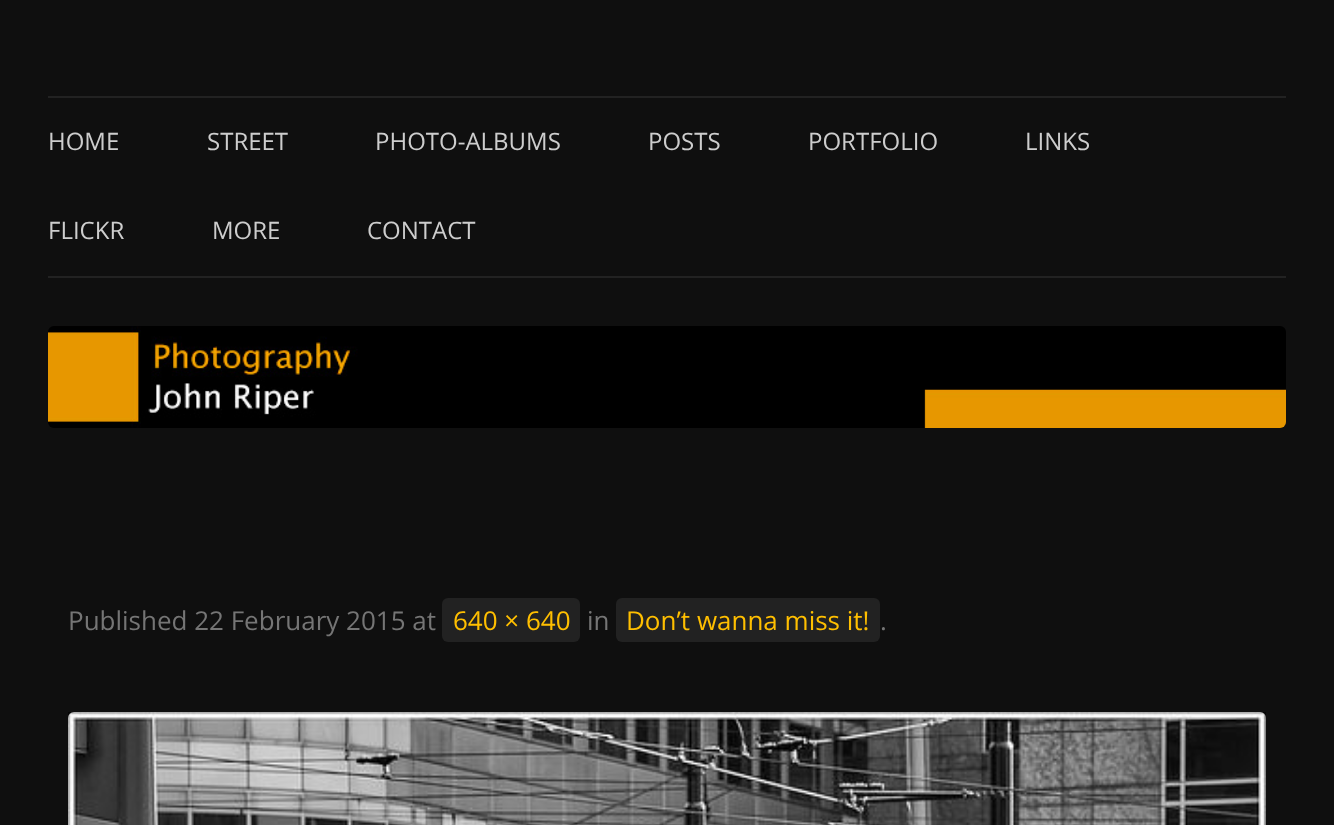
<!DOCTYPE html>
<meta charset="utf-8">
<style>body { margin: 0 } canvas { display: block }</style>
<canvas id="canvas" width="1334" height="825"></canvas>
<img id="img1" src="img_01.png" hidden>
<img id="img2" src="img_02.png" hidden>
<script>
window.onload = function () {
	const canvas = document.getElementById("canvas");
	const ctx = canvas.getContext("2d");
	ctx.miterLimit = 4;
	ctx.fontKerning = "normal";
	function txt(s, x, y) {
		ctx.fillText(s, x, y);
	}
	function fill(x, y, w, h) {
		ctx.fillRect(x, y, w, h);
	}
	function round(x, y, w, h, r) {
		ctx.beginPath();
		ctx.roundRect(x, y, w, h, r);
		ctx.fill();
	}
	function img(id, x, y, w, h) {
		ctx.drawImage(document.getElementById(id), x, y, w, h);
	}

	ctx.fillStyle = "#0F0F0F";
	fill(0, 0, 1334, 825);
	ctx.fillStyle = "#222222";
	fill(48, 96, 1238, 2);
	fill(48, 276, 1238, 2);
	img("img1", 48, 326, 1238, 102);
	round(442, 598, 138, 44, 6);
	round(616, 598, 264, 44, 6);
	ctx.fillStyle = "#060606";
	fill(68, 712, 1198, 6);
	img("img2", 68, 712, 1198, 113);
	ctx.font = "24px Open Sans";
	ctx.fillStyle = "#CDCDCD";
	txt("HOME", 48, 150);
	txt("STREET", 207, 150);
	txt("PHOTO-ALBUMS", 375, 150);
	txt("POSTS", 648, 150);
	txt("PORTFOLIO", 808, 150);
	txt("LINKS", 1025, 150);
	txt("FLICKR", 48, 239);
	txt("MORE", 212, 239);
	txt("CONTACT", 367, 239);
	ctx.font = "26px Open Sans";
	ctx.fillStyle = "#757575";
	txt("Published 22 February 2015 at", 68, 630);
	ctx.fillStyle = "#FFBF00";
	txt("640 × 640", 453, 630);
	ctx.fillStyle = "#757575";
	txt("in", 587, 630);
	ctx.fillStyle = "#FFBF00";
	txt("Don’t wanna miss it!", 626, 630);
	ctx.fillStyle = "#757575";
	txt(".", 880, 630);
};
</script>
